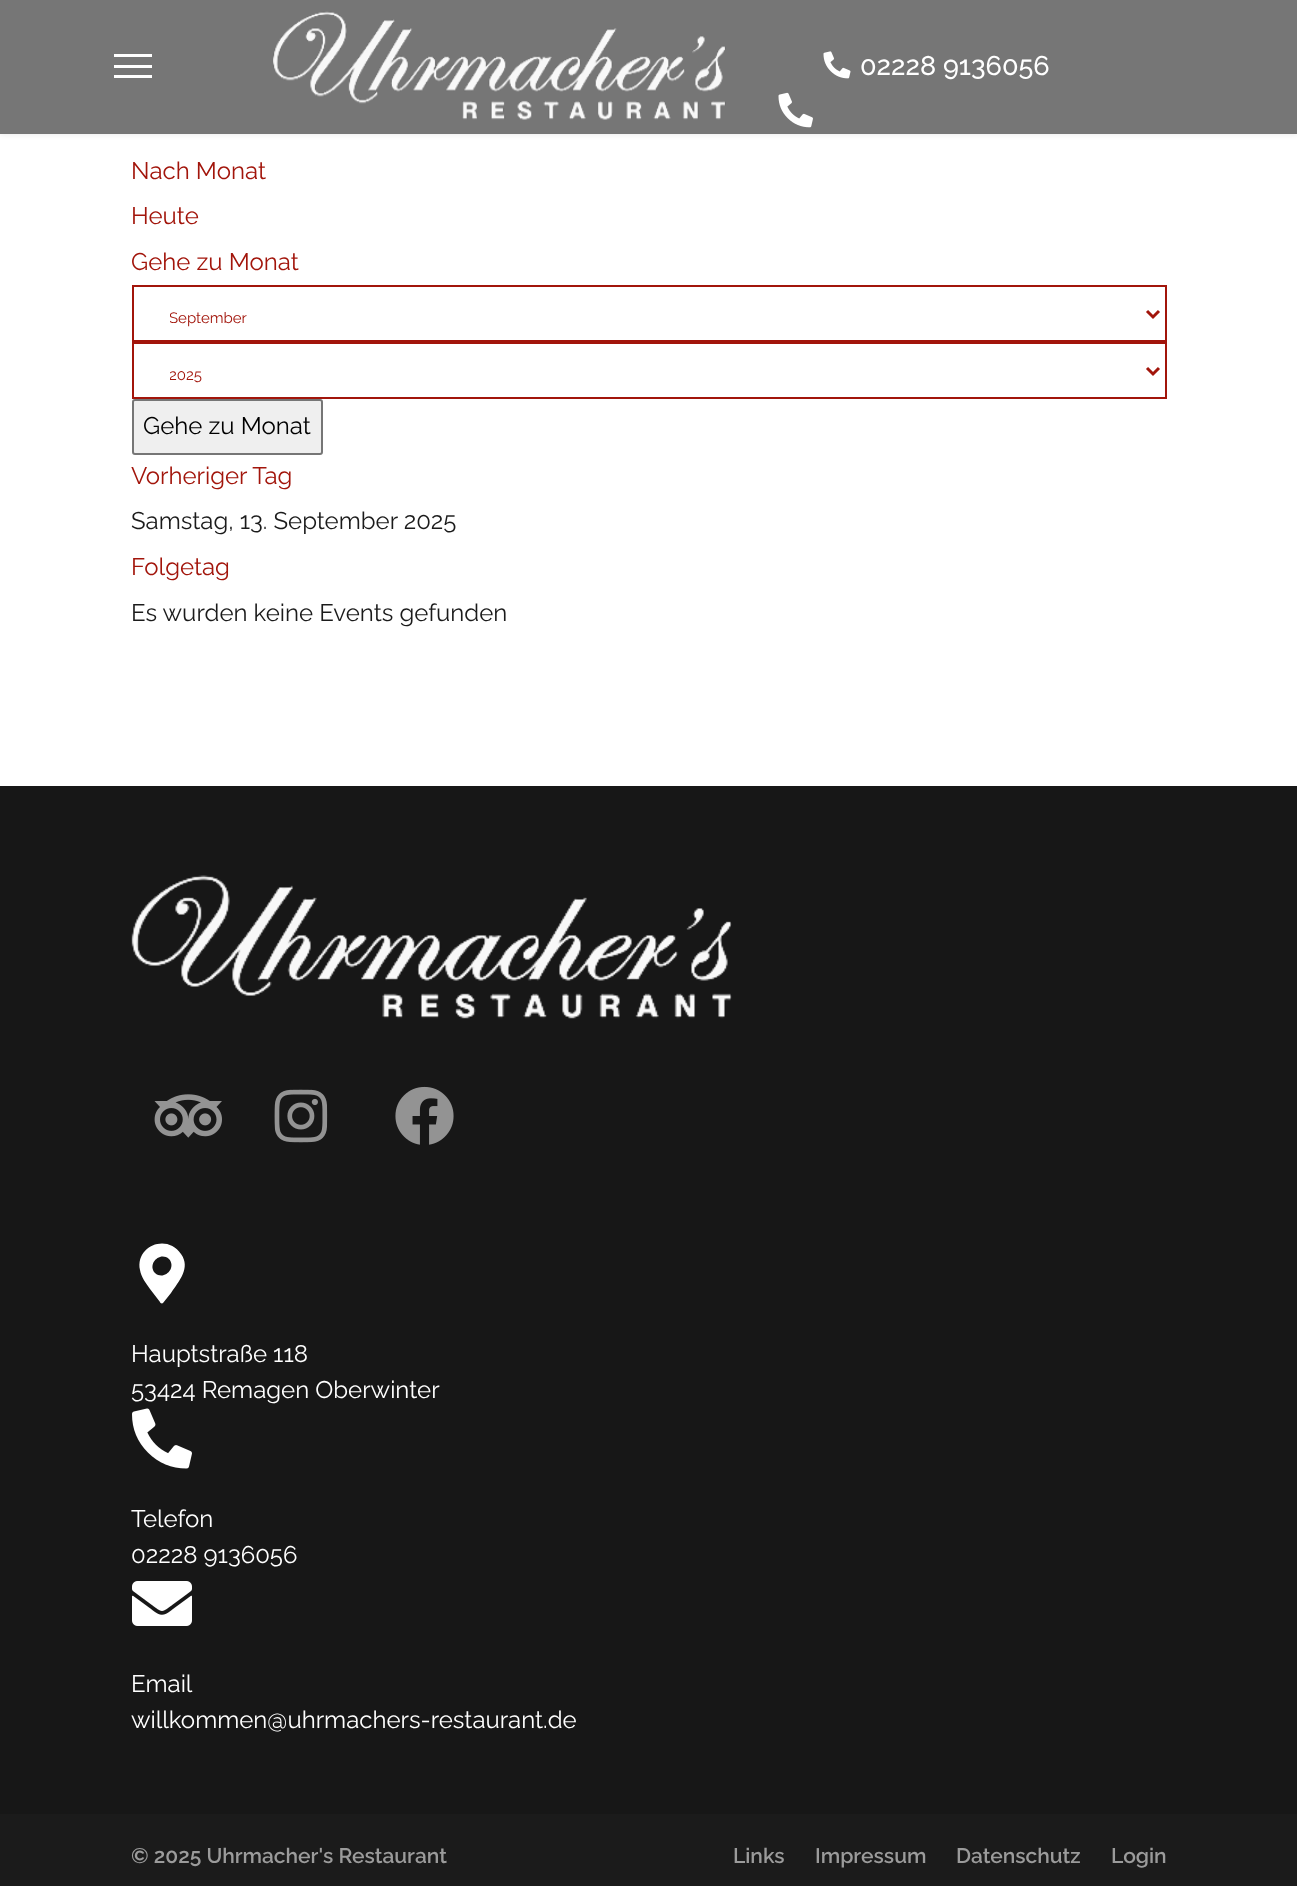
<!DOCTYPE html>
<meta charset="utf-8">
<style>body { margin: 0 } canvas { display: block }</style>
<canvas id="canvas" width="1297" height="1886"></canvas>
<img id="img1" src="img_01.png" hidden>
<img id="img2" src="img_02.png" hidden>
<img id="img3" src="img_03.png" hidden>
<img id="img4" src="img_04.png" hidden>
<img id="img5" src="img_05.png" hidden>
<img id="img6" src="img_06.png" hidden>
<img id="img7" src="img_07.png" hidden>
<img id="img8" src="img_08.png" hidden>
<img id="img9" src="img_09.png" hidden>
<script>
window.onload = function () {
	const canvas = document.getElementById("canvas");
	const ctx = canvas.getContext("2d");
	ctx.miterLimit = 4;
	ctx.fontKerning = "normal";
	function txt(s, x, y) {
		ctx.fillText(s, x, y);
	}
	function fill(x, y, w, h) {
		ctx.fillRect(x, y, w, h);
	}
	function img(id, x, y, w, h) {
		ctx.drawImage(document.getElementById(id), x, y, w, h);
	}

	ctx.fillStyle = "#FFFFFF";
	fill(0, 0, 1297, 1886);
	ctx.save();
	ctx.beginPath();
	ctx.moveTo(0, 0);
	ctx.lineTo(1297, 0);
	ctx.lineTo(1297, 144);
	ctx.lineTo(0, 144);
	ctx.closePath();
	ctx.moveTo(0, -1);
	ctx.lineTo(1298, -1);
	ctx.lineTo(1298, 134);
	ctx.lineTo(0, 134);
	ctx.closePath();
	ctx.clip("evenodd");
	ctx.fillStyle = "rgba(0, 0, 0, 0.1)";
	ctx.filter = "blur(3px)";
	ctx.beginPath();
	ctx.rect(0, -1, 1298, 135);
	ctx.fill();
	ctx.filter = "none";
	ctx.restore();
	ctx.fillStyle = "rgba(27, 27, 27, 0.6)";
	fill(0, 0, 1297, 134);
	ctx.fillStyle = "#FFFFFF";
	fill(114, 54, 38, 3);
	fill(114, 65, 38, 3);
	fill(114, 75, 38, 3);
	img("img1", 273, 11, 453, 109);
	img("img2", 823, 51, 28, 28);
	img("img3", 778, 92, 35, 36);
	ctx.strokeStyle = "#A2150B";
	ctx.lineWidth = 2;
	ctx.strokeRect(133, 286, 1033, 55);
	ctx.beginPath();
	ctx.moveTo(1147, 311);
	ctx.lineTo(1153, 317);
	ctx.lineTo(1159, 311);
	ctx.lineWidth = 3;
	ctx.stroke();
	ctx.lineWidth = 2;
	ctx.strokeRect(133, 343, 1033, 55);
	ctx.beginPath();
	ctx.moveTo(1147, 368);
	ctx.lineTo(1153, 374);
	ctx.lineTo(1159, 368);
	ctx.lineWidth = 3;
	ctx.stroke();
	ctx.fillStyle = "#EFEFEF";
	ctx.beginPath();
	ctx.roundRect(133, 400, 189, 54, 2);
	ctx.fill();
	ctx.strokeStyle = "#767676";
	ctx.lineWidth = 2;
	ctx.stroke();
	ctx.fillStyle = "#171717";
	fill(0, 786, 1297, 1028);
	img("img4", 131, 875, 601, 144);
	img("img5", 154, 1094, 68, 44);
	img("img6", 274, 1089, 54, 54);
	img("img7", 395, 1086, 59, 59);
	ctx.fillStyle = "#FFFFFF";
	ctx.beginPath();
	ctx.moveTo(160, 1302);
	ctx.lineTo(150, 1289);
	ctx.bezierCurveTo(146, 1283, 141, 1277, 140, 1270);
	ctx.bezierCurveTo(135, 1246, 167, 1233, 181, 1254);
	ctx.bezierCurveTo(191, 1268, 179, 1281, 171, 1293);
	ctx.lineTo(163, 1303);
	ctx.bezierCurveTo(162, 1304, 160, 1303, 160, 1302);
	ctx.closePath();
	ctx.moveTo(155, 1273);
	ctx.bezierCurveTo(164, 1281, 177, 1268, 169, 1259);
	ctx.bezierCurveTo(160, 1251, 147, 1264, 155, 1273);
	ctx.closePath();
	ctx.fill();
	img("img8", 132, 1408, 60, 61);
	img("img9", 132, 1581, 60, 45);
	ctx.fillStyle = "#1B1B1B";
	fill(0, 1814, 1297, 72);
	ctx.font = "100 27px 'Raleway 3'";
	ctx.fillStyle = "#FFFFFF";
	txt("02228 9136056", 860, 75);
	ctx.font = "100 24px Raleway";
	ctx.fillStyle = "#A2150B";
	txt("Nach Monat", 131, 179);
	txt("Heute", 131, 224);
	txt("Gehe zu Monat", 131, 270);
	ctx.save();
	ctx.beginPath();
	ctx.rect(170, 308, 942, 19);
	ctx.clip();
	ctx.font = "100 15px Raleway";
	txt("September", 169, 323);
	ctx.restore();
	ctx.save();
	ctx.beginPath();
	ctx.rect(170, 365, 942, 19);
	ctx.clip();
	ctx.font = "100 15px Raleway";
	txt("2025", 169, 380);
	ctx.restore();
	ctx.fillStyle = "#000000";
	txt("Gehe zu Monat", 143, 434);
	ctx.fillStyle = "#A2150B";
	txt("Vorheriger Tag", 131, 484);
	ctx.fillStyle = "#1B1B1B";
	txt("Samstag, 13. September 2025", 131, 529);
	ctx.fillStyle = "#A2150B";
	txt("Folgetag", 131, 575);
	ctx.fillStyle = "#1B1B1B";
	txt("Es wurden keine Events gefunden", 131, 621);
	ctx.fillStyle = "#FFFFFF";
	txt("Hauptstraße 118", 131, 1362);
	txt("53424 Remagen Oberwinter", 131, 1398);
	txt("Telefon", 131, 1527);
	txt("02228 9136056", 131, 1563);
	txt("Email", 131, 1692);
	txt("willkommen@uhrmachers-restaurant.de", 131, 1728);
	ctx.font = "100 21px 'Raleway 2'";
	ctx.fillStyle = "#9B9B9B";
	txt("© 2025 Uhrmacher's Restaurant", 131, 1863);
	txt("Links", 733, 1863);
	txt("Impressum", 815, 1863);
	txt("Datenschutz", 956, 1863);
	txt("Login", 1111, 1863);
};
</script>
